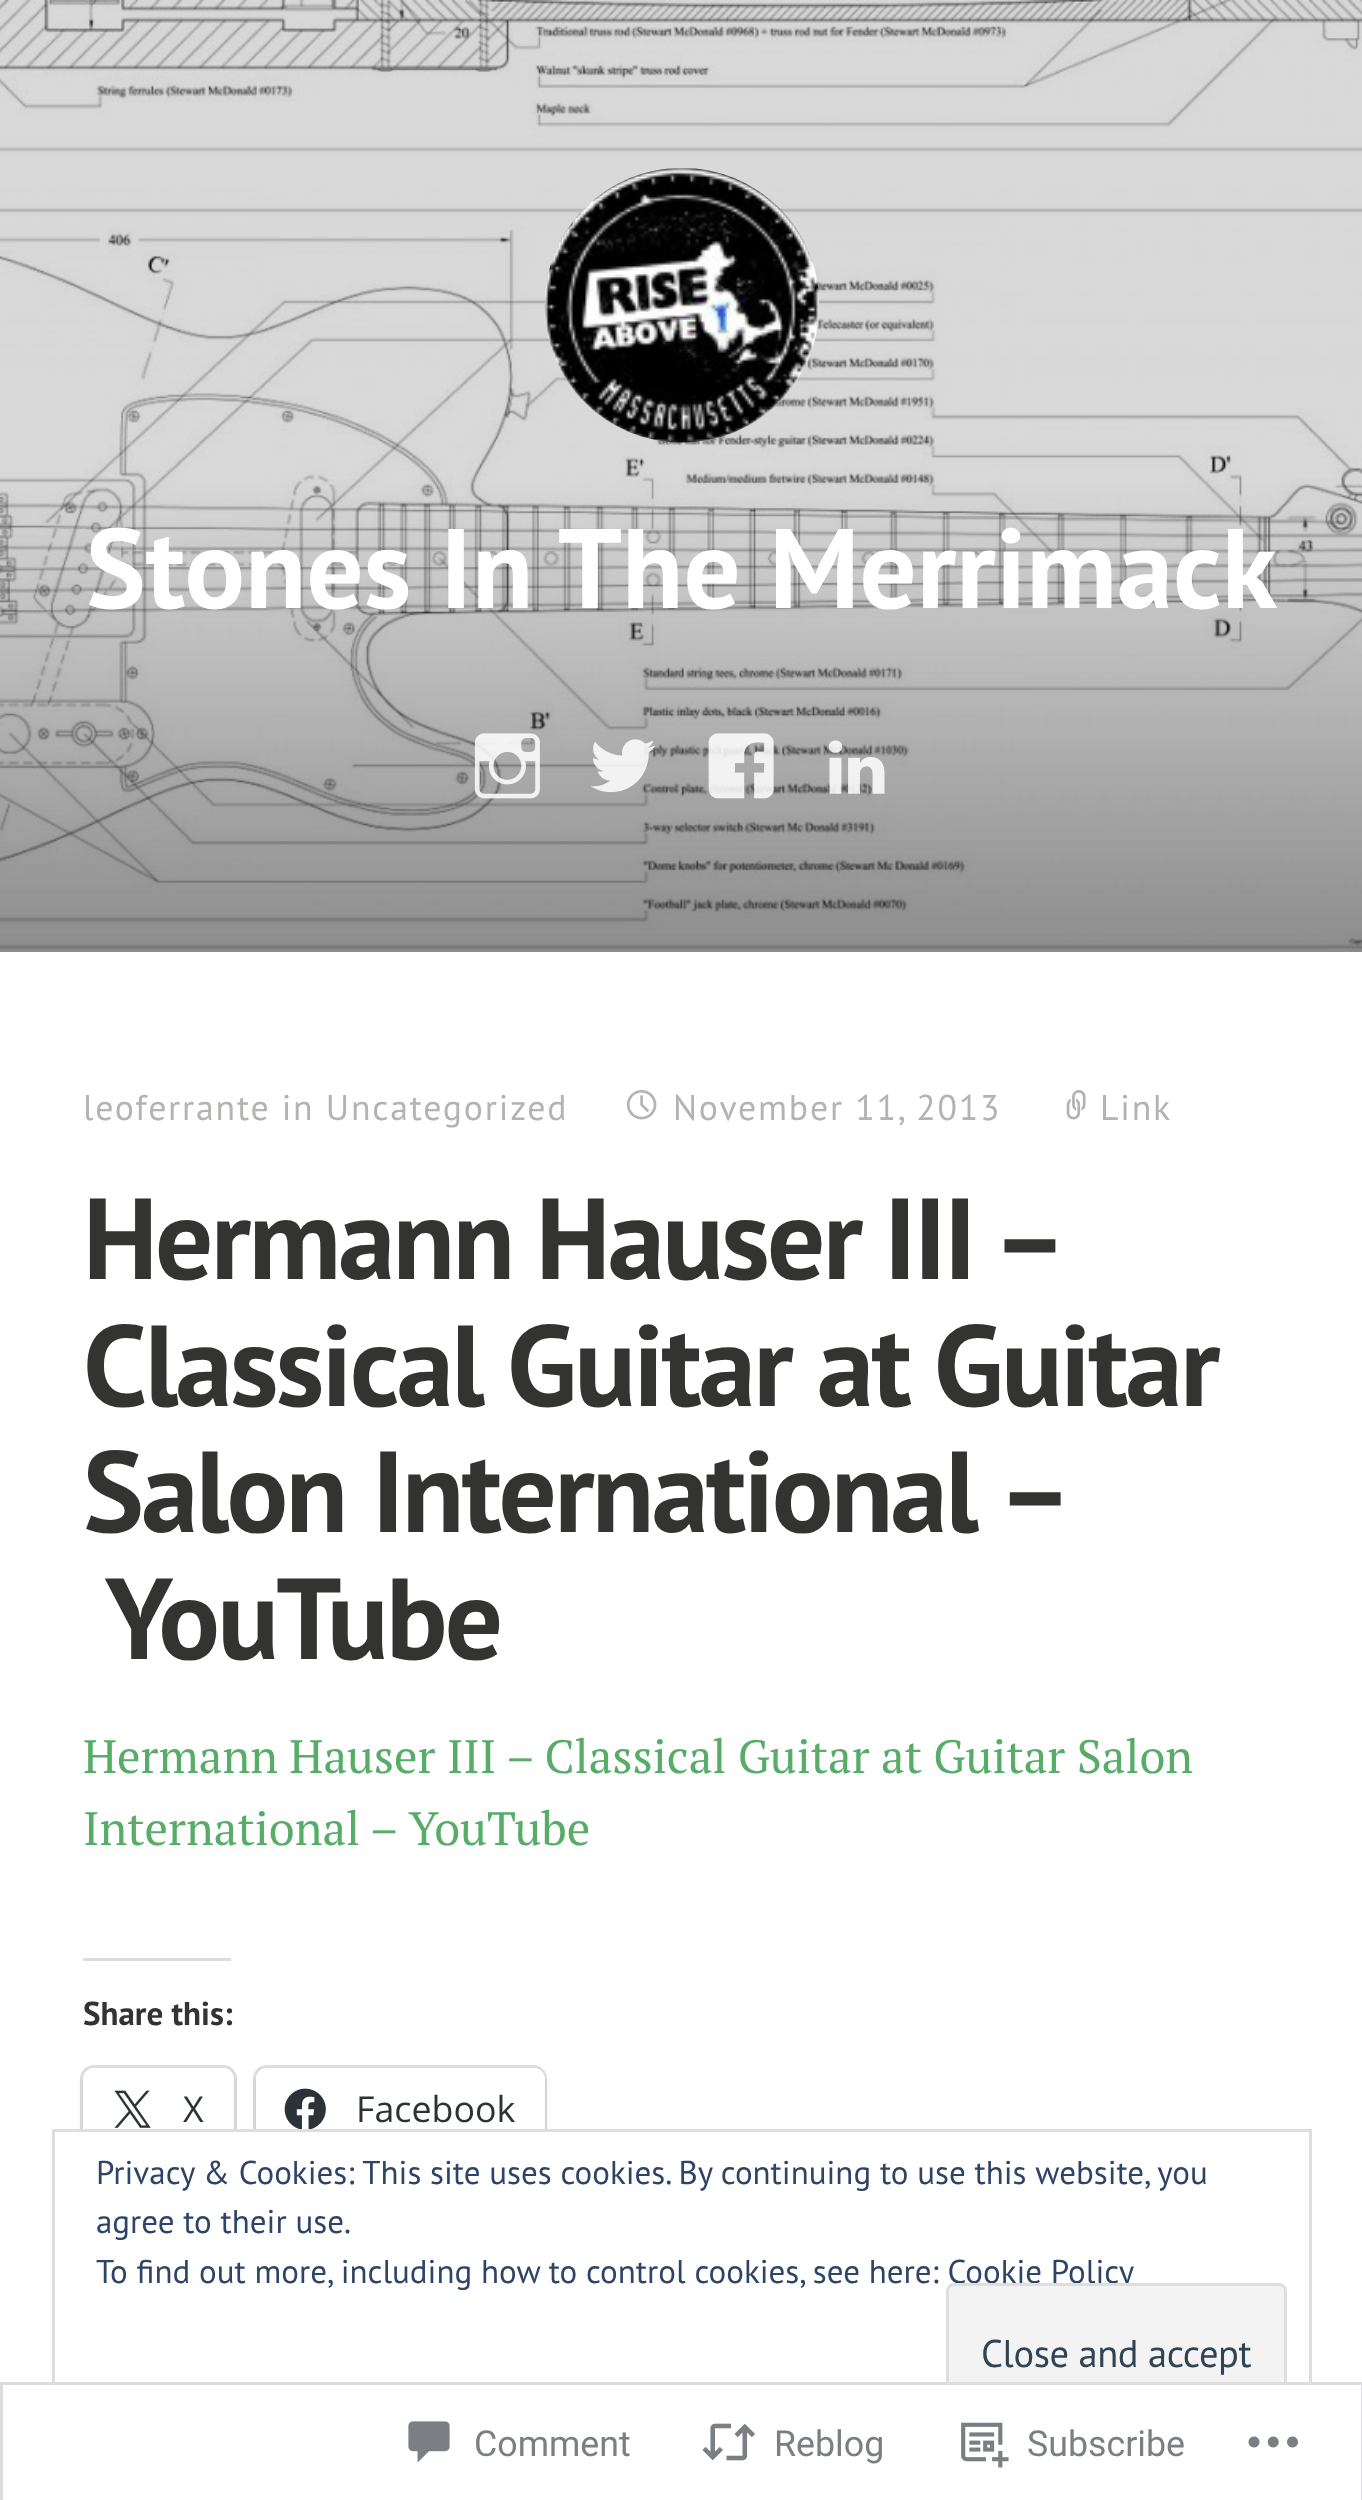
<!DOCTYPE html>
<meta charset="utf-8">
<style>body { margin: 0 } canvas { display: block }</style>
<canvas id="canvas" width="1362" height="2500"></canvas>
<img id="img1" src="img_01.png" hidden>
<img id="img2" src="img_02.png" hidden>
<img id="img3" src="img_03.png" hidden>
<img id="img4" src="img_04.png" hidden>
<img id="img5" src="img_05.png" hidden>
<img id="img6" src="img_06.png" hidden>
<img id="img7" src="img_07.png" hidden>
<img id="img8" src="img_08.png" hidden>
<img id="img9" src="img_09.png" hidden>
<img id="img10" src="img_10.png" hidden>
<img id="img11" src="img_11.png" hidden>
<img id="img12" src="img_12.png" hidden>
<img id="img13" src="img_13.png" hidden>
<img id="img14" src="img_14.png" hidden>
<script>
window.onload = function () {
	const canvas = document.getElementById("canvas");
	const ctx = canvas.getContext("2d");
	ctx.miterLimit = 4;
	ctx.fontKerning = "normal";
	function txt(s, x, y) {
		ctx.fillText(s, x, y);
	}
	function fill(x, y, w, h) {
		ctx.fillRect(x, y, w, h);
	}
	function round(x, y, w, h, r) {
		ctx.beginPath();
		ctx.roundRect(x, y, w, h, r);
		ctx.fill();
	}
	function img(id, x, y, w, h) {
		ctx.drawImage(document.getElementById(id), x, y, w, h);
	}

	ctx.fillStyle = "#FFFFFF";
	fill(0, 0, 1362, 2500);
	img("img1", 0, 0, 1362, 952);
	img("img2", 544, 168, 276, 275);
	img("img3", 474, 733, 66, 66);
	img("img4", 590, 739, 66, 54);
	img("img5", 708, 733, 66, 66);
	img("img6", 828, 740, 57, 54);
	img("img7", 626, 1090, 31, 30);
	img("img8", 1066, 1090, 20, 30);
	ctx.fillStyle = "#DCDCDE";
	fill(83, 1958, 148, 3);
	ctx.beginPath();
	ctx.roundRect(81.5, 2066.5, 154, 85, 12.5);
	ctx.strokeStyle = "#E0E0E0";
	ctx.lineWidth = 3;
	ctx.stroke();
	ctx.fillStyle = "rgba(0, 0, 0, 0.12)";
	ctx.filter = "blur(3px)";
	ctx.beginPath();
	ctx.roundRect(83, 2071, 151, 82, 11);
	ctx.fill();
	ctx.filter = "none";
	ctx.fillStyle = "#FFFFFF";
	round(83, 2068, 151, 83, 11);
	img("img9", 114, 2090, 37, 38);
	ctx.beginPath();
	ctx.roundRect(254.5, 2066.5, 291, 85, 12.5);
	ctx.stroke();
	ctx.fillStyle = "rgba(0, 0, 0, 0.12)";
	ctx.filter = "blur(3px)";
	ctx.beginPath();
	ctx.roundRect(256, 2071, 289, 82, 11);
	ctx.fill();
	ctx.filter = "none";
	ctx.fillStyle = "#FFFFFF";
	round(256, 2068, 289, 83, 11);
	img("img10", 284, 2088, 42, 41);
	fill(79, 2132, 470, 25);
	ctx.strokeStyle = "#DEDEDE";
	ctx.strokeRect(53.5, 2130.5, 1257, 318);
	ctx.font = "bold 112.75px PT Sans";
	txt("Stones In The Merrimack", 86, 608);
	ctx.letterSpacing = "1.8px";
	ctx.font = "35.75px PT Sans";
	ctx.fillStyle = "#B3B3B1";
	txt("leoferrante in Uncategorized", 83, 1120);
	txt("November 11, 2013", 673, 1120);
	txt("Link", 1100, 1120);
	ctx.letterSpacing = "-2.75px";
	ctx.wordSpacing = "-3px";
	ctx.font = "bold 115px PT Sans";
	ctx.fillStyle = "#333332";
	txt("Hermann Hauser III –", 83, 1279);
	ctx.wordSpacing = "0px";
	txt("Classical Guitar at Guitar", 83, 1406);
	txt("Salon International –", 83, 1532);
	txt("YouTube", 105, 1659);
	ctx.letterSpacing = "0px";
	ctx.font = "46.75px PT Serif";
	ctx.fillStyle = "#57AD68";
	txt("Hermann Hauser III – Classical Guitar at Guitar Salon", 83, 1773);
	txt("International – YouTube", 83, 1845);
	ctx.font = "bold 33px PT Sans";
	ctx.fillStyle = "#333332";
	txt("Share this:", 83, 2025);
	ctx.font = "35.75px Open Sans";
	ctx.fillStyle = "#2C3338";
	txt("X", 183, 2122);
	txt("Facebook", 356, 2122);
	ctx.font = "33px PT Sans";
	ctx.fillStyle = "#2E4467";
	txt("Privacy & Cookies: This site uses cookies. By continuing to use this website, you", 96, 2184);
	txt("agree to their use.", 96, 2233);
	txt("To find out more, including how to control cookies, see here: Cookie Policy", 96, 2283);
	ctx.fillStyle = "#F3F3F3";
	ctx.beginPath();
	ctx.roundRect(947.5, 2284.5, 338, 140, 6.5);
	ctx.fill();
	ctx.stroke();
	ctx.letterSpacing = "-0.4px";
	ctx.font = "38.5px PT Sans";
	ctx.fillStyle = "#2E4453";
	txt("Close and accept", 981, 2367);
	ctx.fillStyle = "rgba(255, 255, 255, 0.98)";
	fill(52, 2385, 1260, 65);
	ctx.strokeStyle = "#DDDDDF";
	ctx.strokeRect(1.5, 2383.5, 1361, 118);
	img("img11", 408, 2421, 42, 42);
	ctx.letterSpacing = "0px";
	ctx.font = "35.75px Roboto";
	ctx.fillStyle = "#7B7F84";
	txt("Comment", 474, 2456);
	img("img12", 702, 2423, 53, 38);
	txt("Reblog", 774, 2456);
	img("img13", 961, 2422, 48, 46);
	txt("Subscribe", 1027, 2456);
	img("img14", 1248, 2436, 50, 12);
};
</script>
